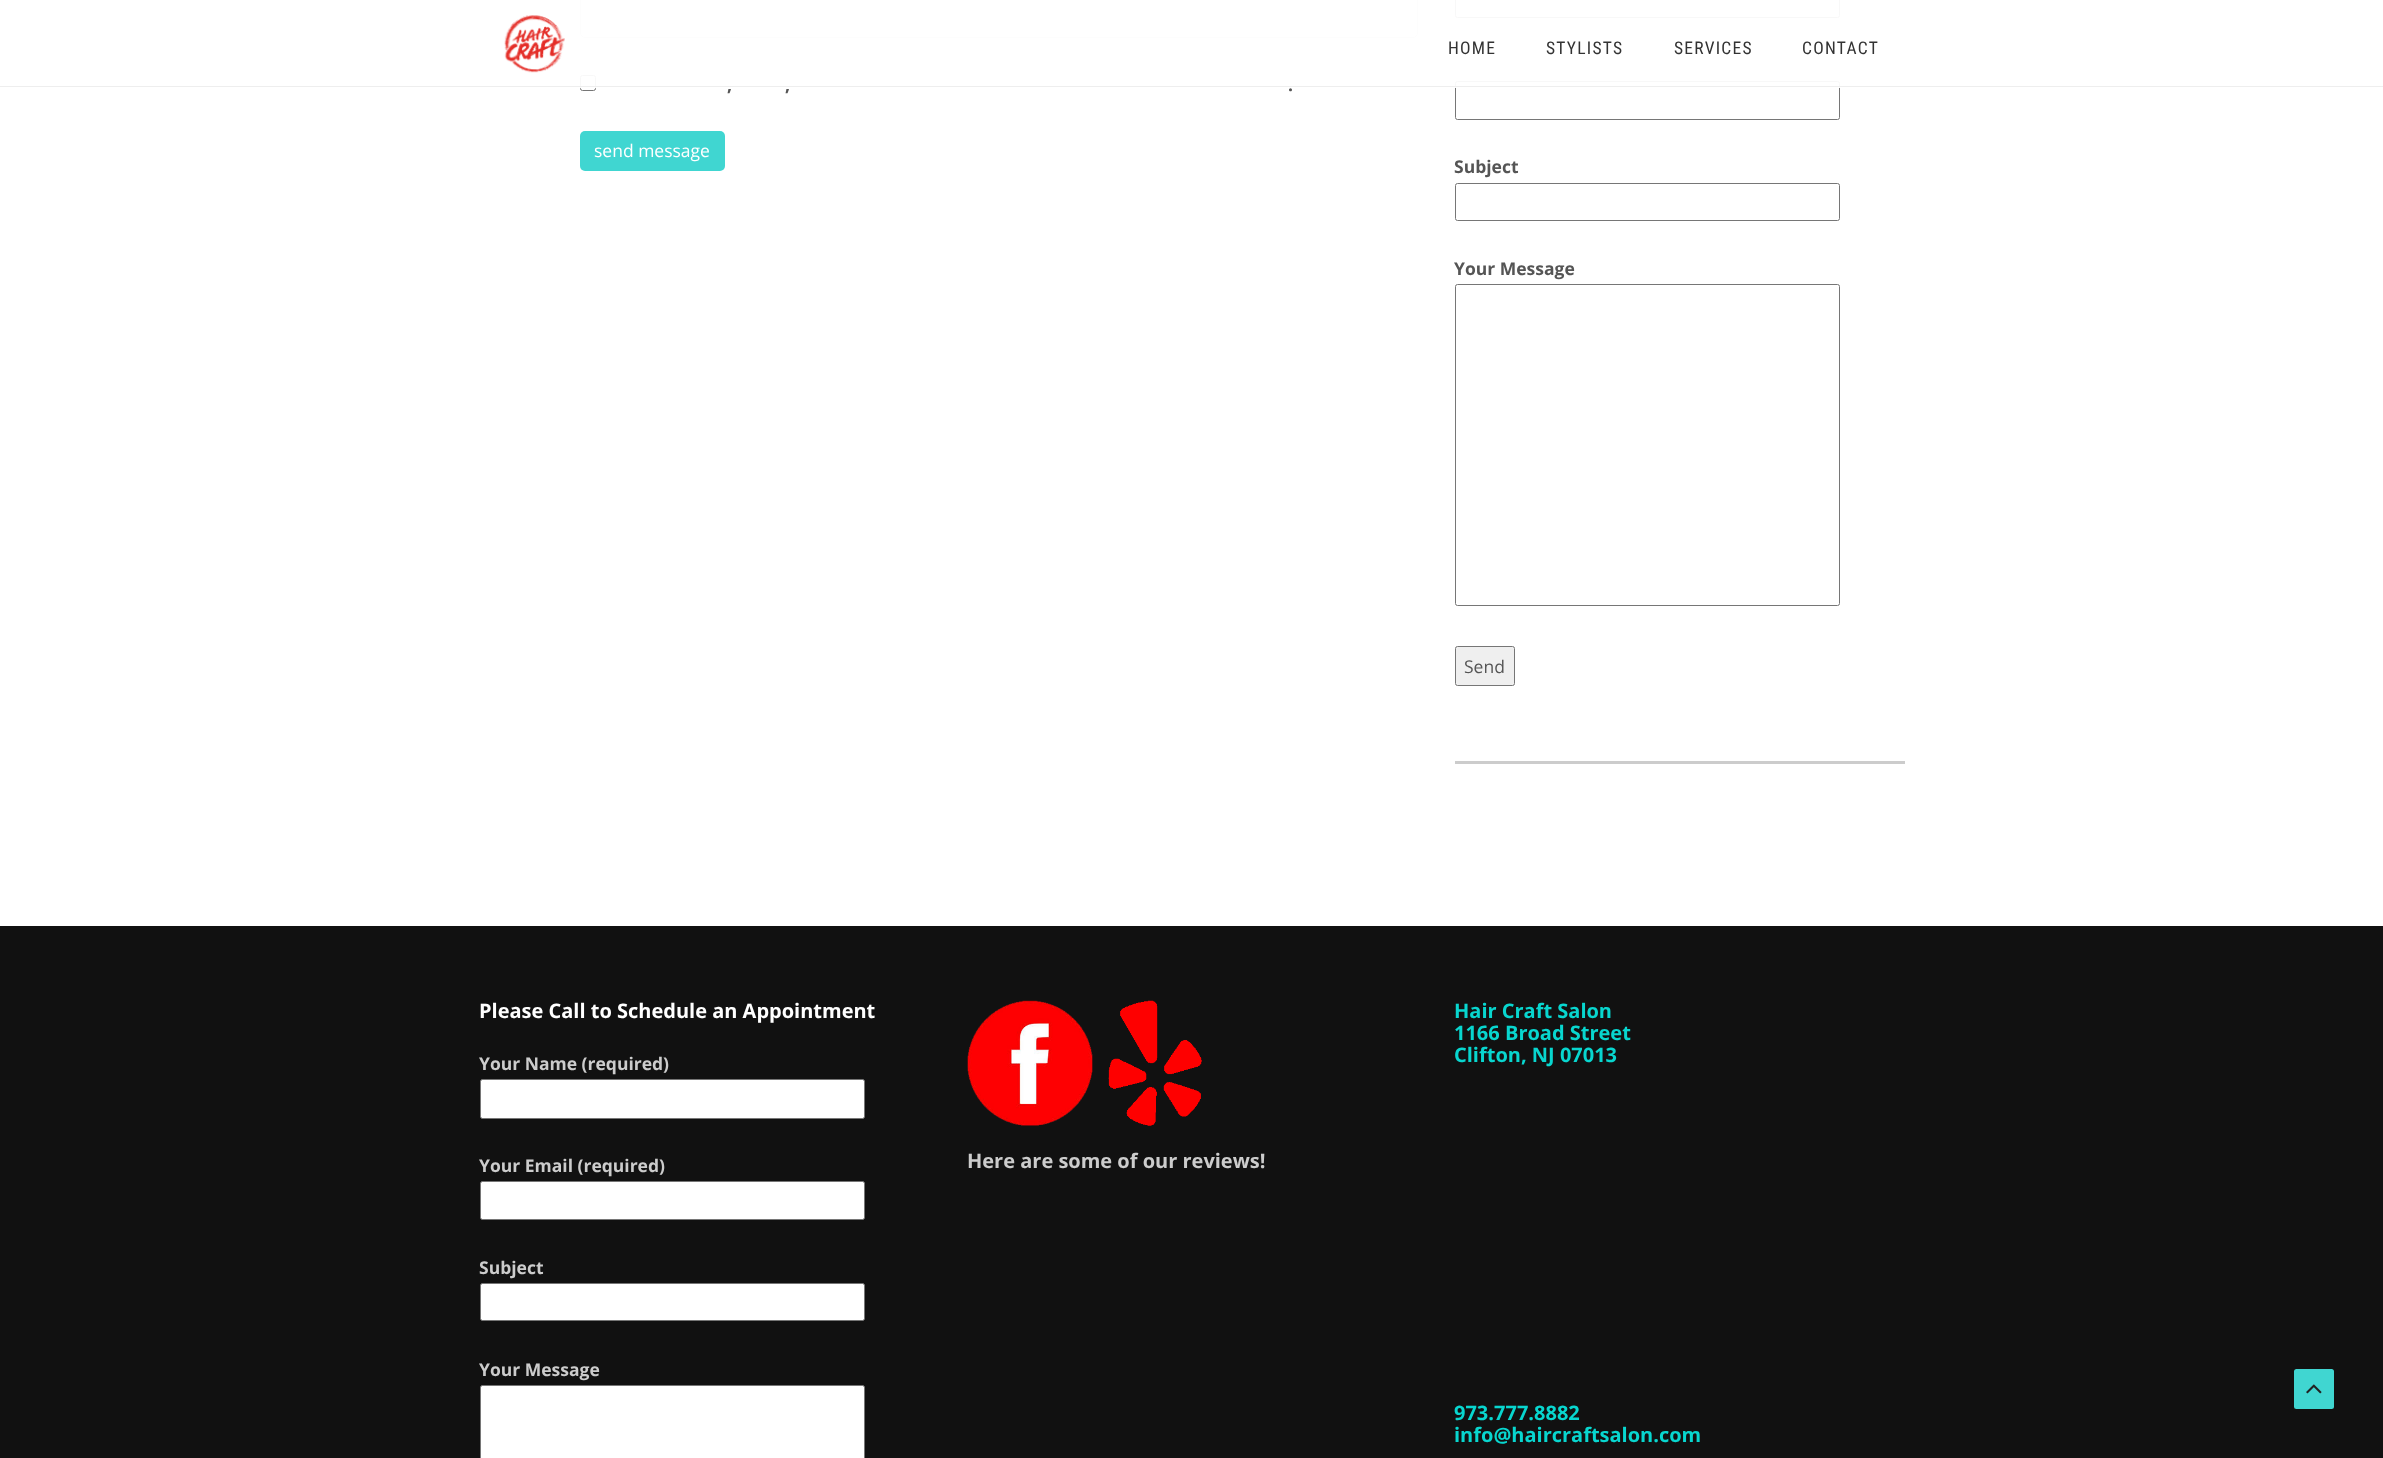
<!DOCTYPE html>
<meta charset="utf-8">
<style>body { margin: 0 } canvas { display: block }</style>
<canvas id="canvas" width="2383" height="1458"></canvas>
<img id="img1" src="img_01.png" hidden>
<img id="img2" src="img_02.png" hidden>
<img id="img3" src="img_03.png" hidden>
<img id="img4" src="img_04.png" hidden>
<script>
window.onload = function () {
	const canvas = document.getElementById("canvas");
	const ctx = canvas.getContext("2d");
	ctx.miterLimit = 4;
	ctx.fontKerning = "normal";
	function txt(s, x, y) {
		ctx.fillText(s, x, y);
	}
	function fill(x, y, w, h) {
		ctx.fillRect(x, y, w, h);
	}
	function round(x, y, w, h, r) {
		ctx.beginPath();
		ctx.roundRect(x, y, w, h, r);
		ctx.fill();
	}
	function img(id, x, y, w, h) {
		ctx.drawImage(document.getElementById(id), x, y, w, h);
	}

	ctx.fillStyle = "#FFFFFF";
	fill(0, 0, 2383, 1458);
	ctx.beginPath();
	ctx.roundRect(580.5, -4.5, 837, 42, 4.5);
	ctx.strokeStyle = "#CCCCCC";
	ctx.stroke();
	ctx.beginPath();
	ctx.roundRect(580.5, 75.5, 15, 15, 2);
	ctx.strokeStyle = "#767676";
	ctx.stroke();
	ctx.beginPath();
	ctx.roundRect(1455.5, -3.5, 384, 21, 2);
	ctx.stroke();
	ctx.beginPath();
	ctx.roundRect(1455.5, 81.5, 384, 38, 2);
	ctx.stroke();
	ctx.fillStyle = "rgba(255, 255, 255, 0.95)";
	fill(580, 0, 1260, 88);
	ctx.fillStyle = "#EEEEEE";
	fill(0, 86, 2383, 1);
	img("img1", 504, 15, 61, 58);
	ctx.fillStyle = "#40D6D1";
	round(580, 131, 145, 40, 5);
	ctx.fillStyle = "#CCCCCC";
	fill(1455, 761, 450, 3);
	ctx.beginPath();
	ctx.roundRect(1455.5, 183.5, 384, 37, 2);
	ctx.stroke();
	ctx.beginPath();
	ctx.roundRect(1455.5, 284.5, 384, 321, 2);
	ctx.stroke();
	ctx.fillStyle = "#EFEFEF";
	ctx.beginPath();
	ctx.roundRect(1455.5, 646.5, 59, 39, 2);
	ctx.fill();
	ctx.stroke();
	ctx.fillStyle = "#111111";
	fill(0, 926, 2383, 532);
	ctx.fillStyle = "#FFFFFF";
	ctx.beginPath();
	ctx.roundRect(480.5, 1079.5, 384, 39, 2);
	ctx.fill();
	ctx.stroke();
	ctx.beginPath();
	ctx.roundRect(480.5, 1181.5, 384, 38, 2);
	ctx.fill();
	ctx.stroke();
	ctx.beginPath();
	ctx.roundRect(480.5, 1283.5, 384, 37, 2);
	ctx.fill();
	ctx.stroke();
	ctx.beginPath();
	ctx.roundRect(480.5, 1385.5, 384, 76, 2);
	ctx.fill();
	ctx.stroke();
	img("img2", 967, 1000, 126, 126);
	img("img3", 1108, 1000, 94, 126);
	ctx.fillStyle = "#40D6D1";
	round(2294, 1369, 40, 40, 2.5);
	img("img4", 2306, 1384, 16, 10);
	ctx.letterSpacing = "1.25px";
	ctx.font = "17.5px Roboto Condensed";
	ctx.fillStyle = "#333333";
	txt("HOME", 1448, 54);
	txt("STYLISTS", 1546, 54);
	txt("SERVICES", 1674, 54);
	txt("CONTACT", 1802, 54);
	ctx.letterSpacing = "0px";
	ctx.font = "bold 17.5px Open Sans";
	ctx.fillStyle = "#555555";
	txt(",", 727, 91);
	txt(",", 785, 91);
	txt(".", 1288, 91);
	ctx.font = "17.5px Open Sans";
	ctx.fillStyle = "#FFFFFF";
	txt("send message", 594, 157);
	ctx.font = "bold 17.5px Open Sans";
	ctx.fillStyle = "#555555";
	txt("Subject", 1454, 173);
	txt("Your Message", 1454, 275);
	ctx.font = "17.5px Open Sans";
	txt("Send", 1464, 673);
	ctx.font = "bold 20px Open Sans";
	ctx.fillStyle = "#FFFFFF";
	txt("Please Call to Schedule an Appointment", 479, 1018);
	ctx.font = "bold 17.5px Open Sans";
	ctx.fillStyle = "#CCCCCC";
	txt("Your Name (required)", 479, 1070);
	txt("Your Email (required)", 479, 1172);
	txt("Subject", 479, 1274);
	txt("Your Message", 479, 1376);
	ctx.font = "bold 20px Open Sans";
	txt("Here are some of our reviews!", 967, 1168);
	ctx.fillStyle = "#08D6CF";
	txt("Hair Craft Salon", 1454, 1018);
	txt("1166 Broad Street", 1454, 1040);
	txt("Clifton, NJ 07013", 1454, 1062);
	txt("973.777.8882", 1454, 1420);
	txt("info@haircraftsalon.com", 1454, 1442);
};
</script>
